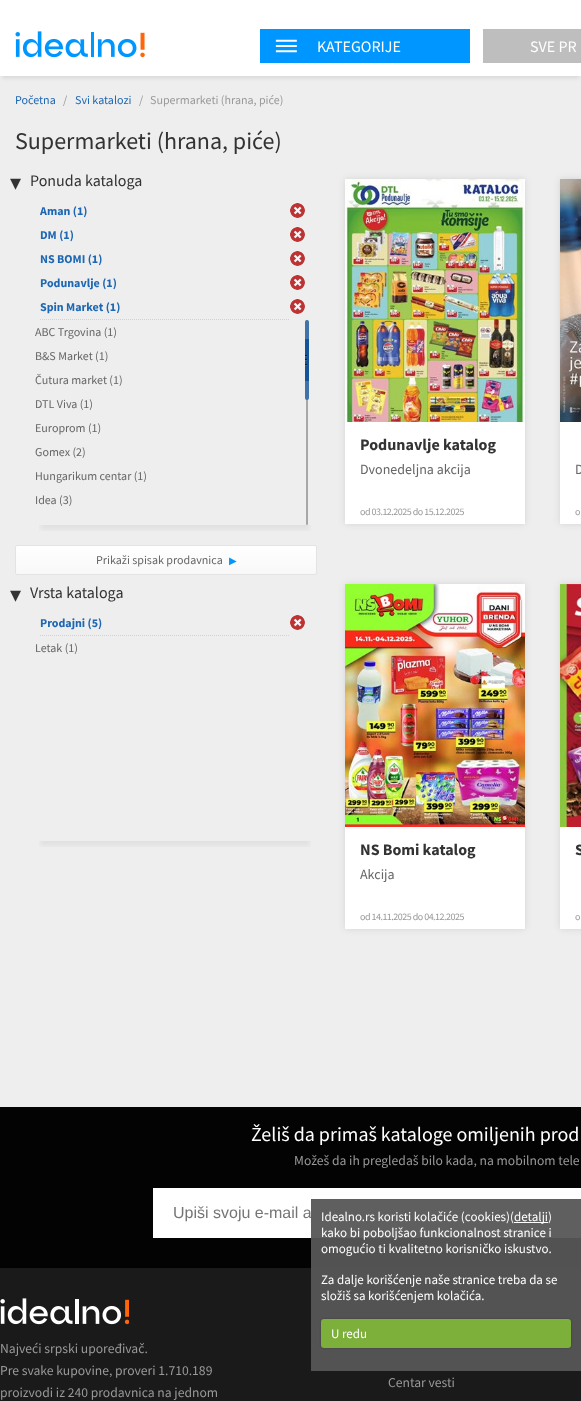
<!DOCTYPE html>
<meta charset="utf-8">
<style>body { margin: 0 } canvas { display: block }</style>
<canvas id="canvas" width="581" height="1401"></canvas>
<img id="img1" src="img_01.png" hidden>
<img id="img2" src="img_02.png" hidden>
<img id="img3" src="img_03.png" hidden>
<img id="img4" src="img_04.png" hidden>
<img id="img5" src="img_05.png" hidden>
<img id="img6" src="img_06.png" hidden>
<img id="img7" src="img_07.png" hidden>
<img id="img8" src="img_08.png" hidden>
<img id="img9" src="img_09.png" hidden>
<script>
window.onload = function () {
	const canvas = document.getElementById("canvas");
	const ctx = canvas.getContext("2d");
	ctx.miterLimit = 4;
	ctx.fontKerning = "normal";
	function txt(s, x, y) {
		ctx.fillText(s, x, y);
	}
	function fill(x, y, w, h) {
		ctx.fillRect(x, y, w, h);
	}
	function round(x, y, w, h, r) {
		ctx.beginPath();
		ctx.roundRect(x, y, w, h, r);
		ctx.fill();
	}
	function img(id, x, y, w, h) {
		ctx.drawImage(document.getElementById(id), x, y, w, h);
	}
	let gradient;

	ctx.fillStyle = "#EEEEEE";
	fill(0, 0, 581, 1401);
	ctx.fillStyle = "#FFFFFF";
	fill(0, 0, 581, 16);
	ctx.fillStyle = "rgba(0, 0, 0, 0.1)";
	ctx.filter = "blur(2px)";
	ctx.beginPath();
	ctx.rect(2, 22, 577, 56);
	ctx.fill();
	ctx.filter = "none";
	ctx.fillStyle = "#FFFFFF";
	fill(0, 16, 581, 60);
	img("img1", 15, 31, 130, 27);
	ctx.fillStyle = "#0096FF";
	fill(260, 29, 210, 34);
	img("img2", 275, 39, 22, 14);
	ctx.fillStyle = "#BEBEBE";
	fill(483, 29, 98, 34);
	ctx.beginPath();
	ctx.moveTo(40, 319.5);
	ctx.lineTo(290, 319.5);
	ctx.strokeStyle = "#D2D2D3";
	ctx.setLineDash([1, 1]);
	ctx.stroke();
	img("img3", 290, 203, 15, 15);
	img("img3", 290, 227, 15, 15);
	img("img3", 290, 251, 15, 15);
	img("img3", 290, 275, 15, 15);
	img("img3", 290, 299, 15, 15);
	ctx.save();
	ctx.beginPath();
	ctx.rect(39, 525, 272, 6);
	ctx.clip();
	ctx.fillStyle = "rgba(0, 0, 0, 0.05)";
	ctx.filter = "blur(2.5px)";
	ctx.beginPath();
	ctx.rect(40, 335, 270, 195);
	ctx.fill();
	ctx.filter = "none";
	ctx.restore();
	ctx.fillStyle = "#A7A7A7";
	round(306, 320, 2, 205, 1);
	ctx.fillStyle = "#3F73A9";
	round(305, 320, 4, 80, 2);
	img("img4", 305, 339, 4, 42);
	ctx.save();
	ctx.beginPath();
	ctx.roundRect(15, 545, 302, 30, 2);
	ctx.clip();
	gradient = ctx.createLinearGradient(166, 546, 166, 574);
	gradient.addColorStop(0, "#FFFFFF");
	gradient.addColorStop(1, "#F8F8F8");
	ctx.fillStyle = gradient;
	fill(15, 546, 302, 28);
	ctx.restore();
	ctx.beginPath();
	ctx.roundRect(15.5, 545.5, 301, 29, 1.5);
	ctx.strokeStyle = "#E3E3E3";
	ctx.setLineDash([]);
	ctx.stroke();
	ctx.beginPath();
	ctx.moveTo(40, 635.5);
	ctx.lineTo(290, 635.5);
	ctx.strokeStyle = "#D2D2D3";
	ctx.setLineDash([1, 1]);
	ctx.stroke();
	img("img3", 290, 615, 15, 15);
	ctx.save();
	ctx.beginPath();
	ctx.rect(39, 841, 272, 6);
	ctx.clip();
	ctx.fillStyle = "rgba(0, 0, 0, 0.05)";
	ctx.filter = "blur(2.5px)";
	ctx.beginPath();
	ctx.rect(40, 651, 270, 195);
	ctx.fill();
	ctx.filter = "none";
	ctx.restore();
	ctx.fillStyle = "rgba(0, 0, 0, 0.1)";
	ctx.filter = "blur(3.5px)";
	ctx.beginPath();
	ctx.rect(345, 179, 180, 345);
	ctx.fill();
	ctx.filter = "none";
	ctx.fillStyle = "#FFFFFF";
	fill(345, 422, 180, 102);
	img("img5", 345, 179, 180, 243);
	ctx.fillStyle = "rgba(0, 0, 0, 0.1)";
	ctx.filter = "blur(3.5px)";
	ctx.beginPath();
	ctx.rect(560, 179, 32, 345);
	ctx.fill();
	ctx.filter = "none";
	ctx.fillStyle = "#FFFFFF";
	fill(560, 422, 21, 102);
	img("img6", 560, 179, 21, 243);
	ctx.fillStyle = "rgba(0, 0, 0, 0.1)";
	ctx.filter = "blur(3.5px)";
	ctx.beginPath();
	ctx.rect(345, 584, 180, 345);
	ctx.fill();
	ctx.filter = "none";
	ctx.fillStyle = "#FFFFFF";
	fill(345, 827, 180, 102);
	img("img7", 345, 584, 180, 243);
	ctx.fillStyle = "rgba(0, 0, 0, 0.1)";
	ctx.filter = "blur(3.5px)";
	ctx.beginPath();
	ctx.rect(560, 584, 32, 345);
	ctx.fill();
	ctx.filter = "none";
	ctx.fillStyle = "#FFFFFF";
	fill(560, 827, 21, 102);
	img("img8", 560, 584, 21, 243);
	ctx.fillStyle = "#030303";
	fill(0, 1107, 581, 161);
	ctx.fillStyle = "#FFFFFF";
	fill(153, 1188, 428, 50);
	ctx.fillStyle = "#1A1A1A";
	fill(0, 1268, 581, 133);
	img("img9", 0, 1298, 129, 27);
	ctx.font = "16px Source Sans Pro";
	ctx.fillStyle = "#FFFFFF";
	txt("KATEGORIJE", 317, 52);
	txt("SVE PR", 530, 52);
	ctx.font = "12px Source Sans Pro";
	ctx.fillStyle = "#1E67B3";
	txt("Početna", 15, 104);
	ctx.fillStyle = "#999999";
	txt("/", 63, 104);
	ctx.fillStyle = "#1E67B3";
	txt("Svi katalozi", 75, 104);
	ctx.fillStyle = "#999999";
	txt("/", 139, 104);
	txt("Supermarketi (hrana, piće)", 150, 104);
	ctx.font = "24px Source Sans Pro";
	ctx.fillStyle = "#333333";
	txt("Supermarketi (hrana, piće)", 15, 149);
	ctx.font = "22px DejaVu Sans";
	txt("▾", 10, 190);
	ctx.font = "16px Source Sans Pro";
	txt("Ponuda kataloga", 30, 186);
	ctx.font = "bold 12px Source Sans Pro";
	ctx.fillStyle = "#1E67B3";
	txt("Aman (1)", 40, 215);
	txt("DM (1)", 40, 239);
	txt("NS BOMI (1)", 40, 263);
	txt("Podunavlje (1)", 40, 287);
	txt("Spin Market (1)", 40, 311);
	ctx.font = "12px Source Sans Pro";
	ctx.fillStyle = "#666666";
	txt("ABC Trgovina (1)", 35, 336);
	txt("B&S Market (1)", 35, 360);
	txt("Čutura market (1)", 35, 384);
	txt("DTL Viva (1)", 35, 408);
	txt("Europrom (1)", 35, 432);
	txt("Gomex (2)", 35, 456);
	txt("Hungarikum centar (1)", 35, 480);
	txt("Idea (3)", 35, 504);
	txt("Prikaži spisak prodavnica", 96, 564);
	ctx.font = "10px DejaVu Sans";
	ctx.fillStyle = "#0096FF";
	txt("▶", 229, 564);
	ctx.font = "22px DejaVu Sans";
	ctx.fillStyle = "#333333";
	txt("▾", 10, 602);
	ctx.font = "16px Source Sans Pro";
	txt("Vrsta kataloga", 30, 598);
	ctx.font = "bold 12px Source Sans Pro";
	ctx.fillStyle = "#1E67B3";
	txt("Prodajni (5)", 40, 627);
	ctx.font = "12px Source Sans Pro";
	ctx.fillStyle = "#666666";
	txt("Letak (1)", 35, 652);
	ctx.font = "bold 16px Source Sans Pro";
	ctx.fillStyle = "#333333";
	txt("Podunavlje katalog", 360, 450);
	ctx.font = "14px Source Sans Pro";
	ctx.fillStyle = "#666666";
	txt("Dvonedeljna akcija", 360, 474);
	ctx.letterSpacing = "-0.5px";
	ctx.font = "10px Source Sans Pro";
	ctx.fillStyle = "#999999";
	txt("od 03.12.2025 do 15.12.2025", 360, 515);
	ctx.letterSpacing = "0px";
	ctx.font = "14px Source Sans Pro";
	ctx.fillStyle = "#666666";
	txt("D", 575, 474);
	ctx.letterSpacing = "-0.5px";
	ctx.font = "10px Source Sans Pro";
	ctx.fillStyle = "#999999";
	txt("o", 575, 515);
	ctx.letterSpacing = "0px";
	ctx.font = "bold 16px Source Sans Pro";
	ctx.fillStyle = "#333333";
	txt("NS Bomi katalog", 360, 855);
	ctx.font = "14px Source Sans Pro";
	ctx.fillStyle = "#666666";
	txt("Akcija", 360, 879);
	ctx.letterSpacing = "-0.5px";
	ctx.font = "10px Source Sans Pro";
	ctx.fillStyle = "#999999";
	txt("od 14.11.2025 do 04.12.2025", 360, 920);
	ctx.letterSpacing = "0px";
	ctx.font = "bold 16px Source Sans Pro";
	ctx.fillStyle = "#333333";
	txt("S", 575, 855);
	ctx.letterSpacing = "-0.5px";
	ctx.font = "10px Source Sans Pro";
	ctx.fillStyle = "#999999";
	txt("o", 575, 920);
	ctx.letterSpacing = "0px";
	ctx.font = "20px Source Sans Pro";
	ctx.fillStyle = "#FFFFFF";
	txt("Želiš da primaš kataloge omiljenih prod", 251, 1141);
	ctx.font = "13.6px Source Sans Pro";
	ctx.fillStyle = "#999999";
	txt("Možeš da ih pregledaš bilo kada, na mobilnom tele", 294, 1165);
	ctx.font = "16px Liberation Sans";
	ctx.fillStyle = "#757575";
	txt("Upiši svoju e-mail a", 173, 1218);
	ctx.font = "13.6px Source Sans Pro";
	ctx.fillStyle = "#999999";
	txt("Najveći srpski upoređivač.", 0, 1353);
	txt("Pre svake kupovine, proveri 1.710.189", 0, 1375);
	txt("proizvodi iz 240 prodavnica na jednom", 0, 1397);
	txt("Centar vesti", 388, 1387);
	ctx.fillStyle = "rgba(86, 86, 86, 0.95)";
	fill(311, 1199, 270, 172);
	ctx.font = "13px Source Sans Pro";
	ctx.fillStyle = "#FFFFFF";
	txt("Idealno.rs koristi kolačiće (cookies)(", 321, 1221);
	fill(514, 1222, 34, 1);
	txt("detalji)", 514, 1221);
	txt("kako bi poboljšao funkcionalnost stranice i", 321, 1237);
	txt("omogućio ti kvalitetno korisničko iskustvo.", 321, 1253);
	txt("Za dalje korišćenje naše stranice treba da se", 321, 1284);
	txt("složiš sa korišćenjem kolačića.", 321, 1300);
	ctx.fillStyle = "rgba(0, 0, 0, 0.25)";
	ctx.filter = "blur(1px)";
	ctx.beginPath();
	ctx.roundRect(321, 1319, 250, 29, 3);
	ctx.fill();
	ctx.filter = "none";
	ctx.fillStyle = "#7DAF3B";
	round(321, 1319, 250, 29, 3);
	ctx.fillStyle = "#FFFFFF";
	txt("U redu", 331, 1338);
};
</script>
